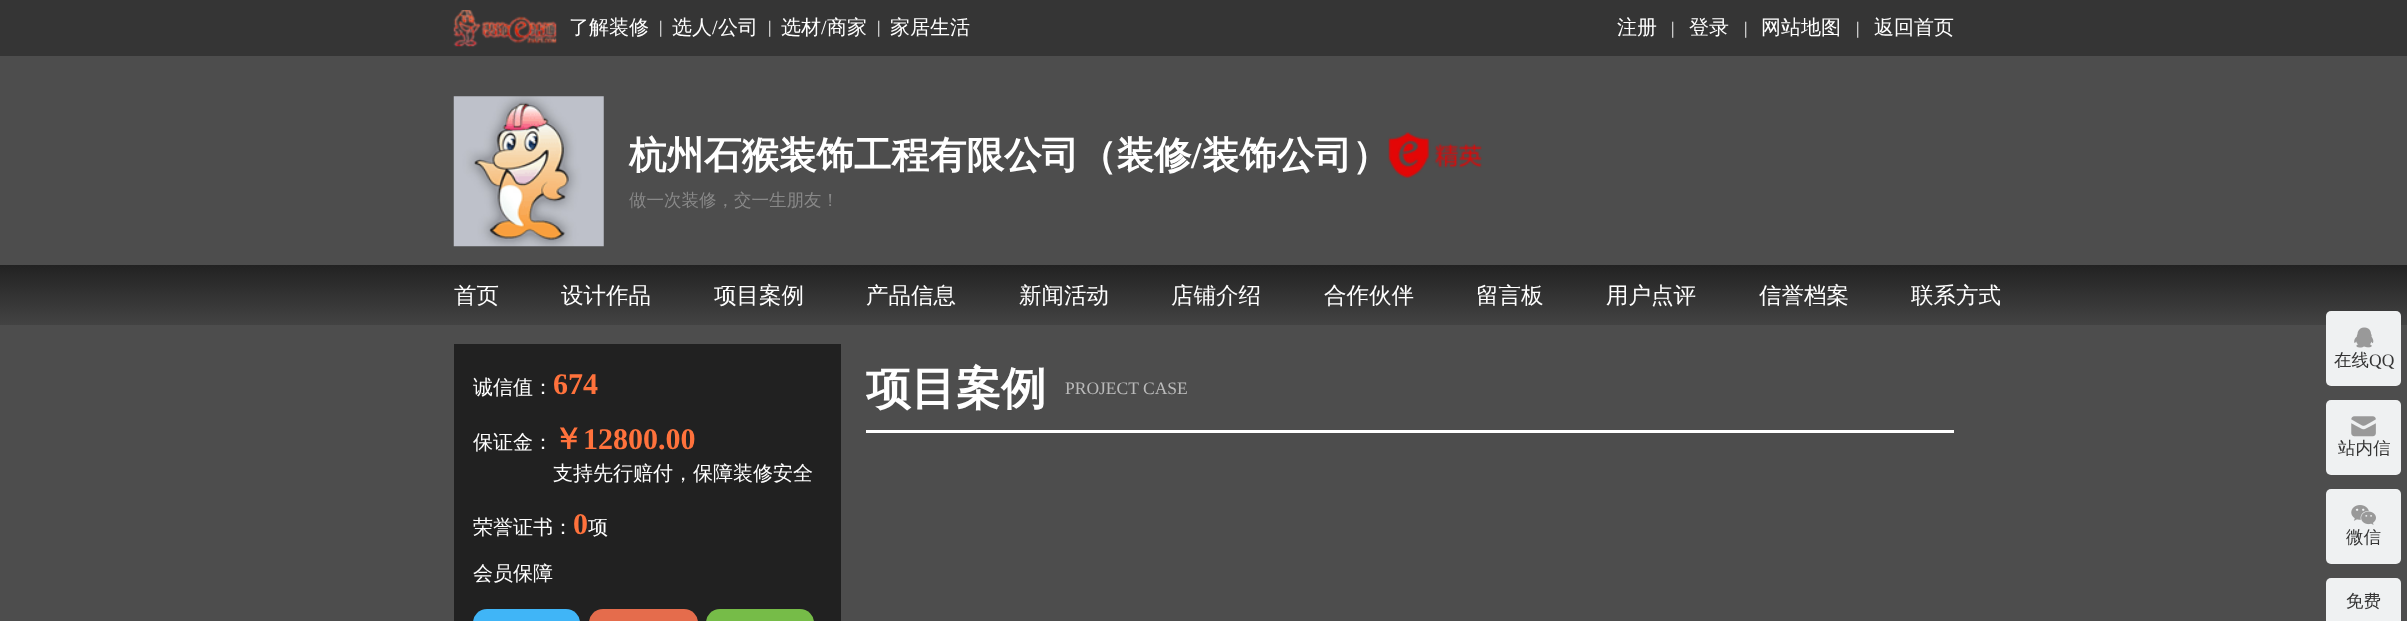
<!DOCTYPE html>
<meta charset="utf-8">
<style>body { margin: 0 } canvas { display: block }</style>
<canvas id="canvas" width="2407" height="621"></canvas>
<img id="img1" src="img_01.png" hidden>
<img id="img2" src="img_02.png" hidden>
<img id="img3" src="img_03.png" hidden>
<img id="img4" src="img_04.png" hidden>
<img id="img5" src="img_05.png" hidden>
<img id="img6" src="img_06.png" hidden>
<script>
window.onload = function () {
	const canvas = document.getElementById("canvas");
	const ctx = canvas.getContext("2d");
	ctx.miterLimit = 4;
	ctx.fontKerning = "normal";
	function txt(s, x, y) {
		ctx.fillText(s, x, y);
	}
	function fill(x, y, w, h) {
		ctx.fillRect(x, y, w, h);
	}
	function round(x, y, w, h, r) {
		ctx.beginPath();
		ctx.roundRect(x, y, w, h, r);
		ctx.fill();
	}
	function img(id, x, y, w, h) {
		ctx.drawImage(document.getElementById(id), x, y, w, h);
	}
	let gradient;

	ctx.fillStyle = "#4D4D4D";
	fill(0, 0, 2407, 621);
	ctx.fillStyle = "#353535";
	fill(0, 0, 2407, 56);
	img("img1", 453, 10, 104, 37);
	img("img2", 453, 96, 151, 151);
	img("img3", 1388, 132, 94, 46);
	gradient = ctx.createLinearGradient(1204, 325, 1204, 265);
	gradient.addColorStop(0, "#434343");
	gradient.addColorStop(1, "#222222");
	ctx.fillStyle = gradient;
	fill(0, 265, 2407, 60);
	ctx.fillStyle = "#212121";
	fill(454, 344, 387, 277);
	ctx.fillStyle = "#40B5F7";
	round(473, 609, 107, 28, 15.5);
	ctx.fillStyle = "#E56C4C";
	round(589, 609, 109, 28, 15.5);
	ctx.fillStyle = "#76BC48";
	round(706, 609, 108, 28, 15.5);
	ctx.fillStyle = "#FFFFFF";
	fill(866, 430, 1088, 3);
	ctx.fillStyle = "#EFF1F2";
	round(2326, 311, 75, 75, 5);
	img("img4", 2354, 327, 20, 21);
	round(2326, 400, 75, 75, 5);
	img("img5", 2351, 416, 25, 21);
	round(2326, 489, 75, 75, 5);
	img("img6", 2351, 505, 25, 20);
	round(2326, 578, 75, 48, 5);
	ctx.font = "500 20px WenQuanYi Zen Hei";
	ctx.fillStyle = "#FFFFFF";
	txt("了解装修", 569, 34);
	ctx.font = "17.5px Liberation Serif";
	txt("|", 659, 33);
	ctx.font = "500 20px WenQuanYi Zen Hei";
	txt("选人", 672, 34);
	ctx.font = "20px Liberation Serif";
	txt("/", 712, 34);
	ctx.font = "500 20px WenQuanYi Zen Hei";
	txt("公司", 718, 34);
	ctx.font = "17.5px Liberation Serif";
	txt("|", 768, 33);
	ctx.font = "500 20px WenQuanYi Zen Hei";
	txt("选材", 781, 34);
	ctx.font = "20px Liberation Serif";
	txt("/", 821, 34);
	ctx.font = "500 20px WenQuanYi Zen Hei";
	txt("商家", 827, 34);
	ctx.font = "17.5px Liberation Serif";
	txt("|", 877, 33);
	ctx.font = "500 20px WenQuanYi Zen Hei";
	txt("家居生活", 890, 34);
	txt("注册", 1617, 34);
	ctx.font = "17.5px Liberation Serif";
	txt("|", 1671, 34);
	ctx.font = "500 20px WenQuanYi Zen Hei";
	txt("登录", 1689, 34);
	ctx.font = "17.5px Liberation Serif";
	txt("|", 1744, 34);
	ctx.font = "500 20px WenQuanYi Zen Hei";
	txt("网站地图", 1761, 34);
	ctx.font = "17.5px Liberation Serif";
	txt("|", 1856, 34);
	ctx.font = "500 20px WenQuanYi Zen Hei";
	txt("返回首页", 1874, 34);
	ctx.font = "bold 37.5px WenQuanYi Zen Hei";
	txt("杭州石猴装饰工程有限公司（装修", 629, 168);
	ctx.font = "bold 37.5px Liberation Serif";
	txt("/", 1191, 168);
	ctx.font = "bold 37.5px WenQuanYi Zen Hei";
	txt("装饰公司）", 1202, 168);
	ctx.font = "500 17.5px WenQuanYi Zen Hei";
	ctx.fillStyle = "#888888";
	txt("做一次装修，交一生朋友！", 629, 206);
	ctx.font = "500 22.5px WenQuanYi Zen Hei";
	ctx.fillStyle = "#FFFFFF";
	txt("首页", 454, 303);
	txt("设计作品", 561, 303);
	txt("项目案例", 714, 303);
	txt("产品信息", 866, 303);
	txt("新闻活动", 1019, 303);
	txt("店铺介绍", 1171, 303);
	txt("合作伙伴", 1324, 303);
	txt("留言板", 1476, 303);
	txt("用户点评", 1606, 303);
	txt("信誉档案", 1759, 303);
	txt("联系方式", 1911, 303);
	ctx.font = "500 20px WenQuanYi Zen Hei";
	txt("诚信值：", 473, 394);
	ctx.font = "bold 30px Liberation Serif";
	ctx.fillStyle = "#FF723C";
	txt("674", 553, 394);
	ctx.font = "500 20px WenQuanYi Zen Hei";
	ctx.fillStyle = "#FFFFFF";
	txt("保证金：", 473, 449);
	ctx.font = "bold 30px WenQuanYi Zen Hei";
	ctx.fillStyle = "#FF723C";
	txt("￥", 553, 449);
	ctx.font = "bold 30px Liberation Serif";
	txt("12800.00", 583, 449);
	ctx.font = "500 20px WenQuanYi Zen Hei";
	ctx.fillStyle = "#FFFFFF";
	txt("支持先行赔付，保障装修安全", 553, 480);
	txt("荣誉证书：", 473, 534);
	ctx.font = "bold 30px Liberation Serif";
	ctx.fillStyle = "#FF723C";
	txt("0", 573, 534);
	ctx.font = "500 20px WenQuanYi Zen Hei";
	ctx.fillStyle = "#FFFFFF";
	txt("项", 588, 534);
	txt("会员保障", 473, 580);
	ctx.font = "bold 45px WenQuanYi Zen Hei";
	txt("项目案例", 866, 404);
	ctx.font = "17.5px Liberation Serif";
	ctx.fillStyle = "#BABABA";
	txt("PROJECT CASE", 1065, 394);
	ctx.font = "500 17.5px WenQuanYi Zen Hei";
	ctx.fillStyle = "#343434";
	txt("在线", 2334, 366);
	ctx.font = "17.5px Liberation Serif";
	txt("QQ", 2369, 366);
	ctx.font = "500 17.5px WenQuanYi Zen Hei";
	txt("站内信", 2338, 454);
	txt("微信", 2346, 543);
	txt("免费", 2346, 607);
};
</script>
